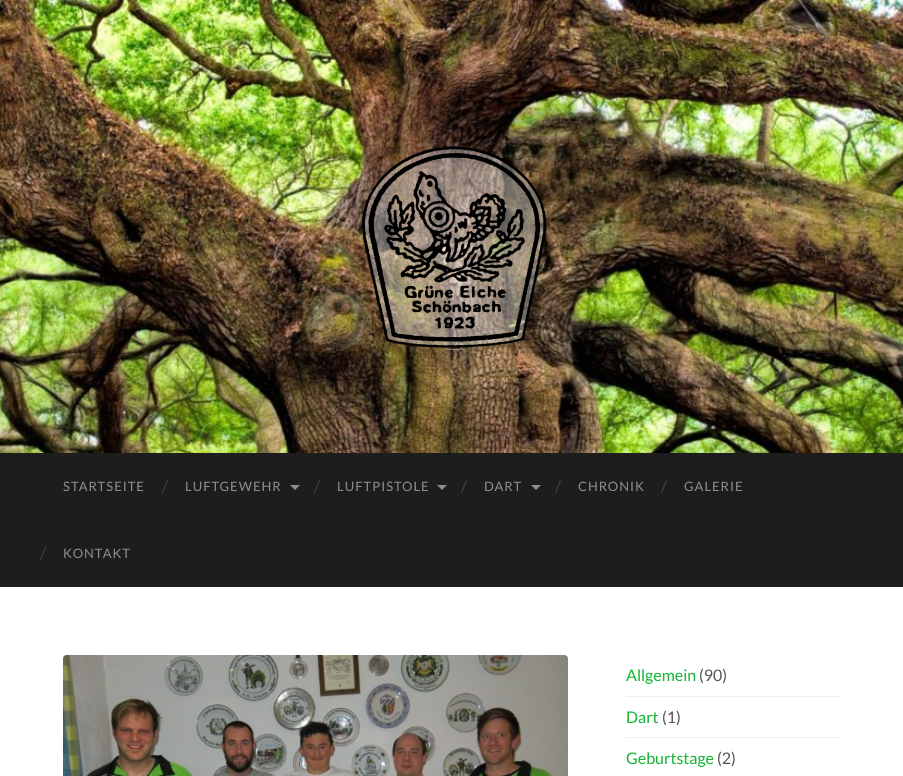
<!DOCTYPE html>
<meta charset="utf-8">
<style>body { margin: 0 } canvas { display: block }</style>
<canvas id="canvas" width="903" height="776"></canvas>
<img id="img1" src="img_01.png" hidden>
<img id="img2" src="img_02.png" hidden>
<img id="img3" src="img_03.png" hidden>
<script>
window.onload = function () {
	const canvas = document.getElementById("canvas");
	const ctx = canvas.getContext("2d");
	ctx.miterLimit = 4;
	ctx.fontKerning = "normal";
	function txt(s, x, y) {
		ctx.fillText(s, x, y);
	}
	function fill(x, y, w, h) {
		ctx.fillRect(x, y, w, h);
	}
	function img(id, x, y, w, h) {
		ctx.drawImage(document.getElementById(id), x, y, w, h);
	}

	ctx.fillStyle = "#FFFFFF";
	fill(0, 0, 903, 776);
	img("img1", 0, 0, 903, 453);
	img("img2", 343, 100, 223, 250);
	ctx.fillStyle = "#1D1D1D";
	fill(0, 453, 903, 134);
	ctx.fillStyle = "#8E8E8E";
	ctx.beginPath();
	ctx.moveTo(290, 485);
	ctx.lineTo(300, 485);
	ctx.lineTo(295, 490);
	ctx.closePath();
	ctx.fill();
	ctx.beginPath();
	ctx.moveTo(437, 485);
	ctx.lineTo(447, 485);
	ctx.lineTo(442, 490);
	ctx.closePath();
	ctx.fill();
	ctx.beginPath();
	ctx.moveTo(531, 485);
	ctx.lineTo(541, 485);
	ctx.lineTo(536, 490);
	ctx.closePath();
	ctx.fill();
	img("img3", 63, 655, 505, 121);
	ctx.fillStyle = "#EEEEEE";
	fill(626, 696, 214, 1);
	fill(626, 737, 214, 1);
	ctx.letterSpacing = "1px";
	ctx.font = "13px Lato";
	ctx.fillStyle = "#8E8E8E";
	txt("STARTSEITE", 63, 491);
	ctx.letterSpacing = "0px";
	ctx.font = "16px Lato";
	ctx.fillStyle = "#444444";
	txt("/", 162, 492);
	ctx.letterSpacing = "1px";
	ctx.font = "13px Lato";
	ctx.fillStyle = "#8E8E8E";
	txt("LUFTGEWEHR", 185, 491);
	ctx.letterSpacing = "0px";
	ctx.font = "16px Lato";
	ctx.fillStyle = "#444444";
	txt("/", 314, 492);
	ctx.letterSpacing = "1px";
	ctx.font = "13px Lato";
	ctx.fillStyle = "#8E8E8E";
	txt("LUFTPISTOLE", 337, 491);
	ctx.letterSpacing = "0px";
	ctx.font = "16px Lato";
	ctx.fillStyle = "#444444";
	txt("/", 461, 492);
	ctx.letterSpacing = "1px";
	ctx.font = "13px Lato";
	ctx.fillStyle = "#8E8E8E";
	txt("DART", 484, 491);
	ctx.letterSpacing = "0px";
	ctx.font = "16px Lato";
	ctx.fillStyle = "#444444";
	txt("/", 555, 492);
	ctx.letterSpacing = "1px";
	ctx.font = "13px Lato";
	ctx.fillStyle = "#8E8E8E";
	txt("CHRONIK", 578, 491);
	ctx.letterSpacing = "0px";
	ctx.font = "16px Lato";
	ctx.fillStyle = "#444444";
	txt("/", 661, 492);
	ctx.letterSpacing = "1px";
	ctx.font = "13px Lato";
	ctx.fillStyle = "#8E8E8E";
	txt("GALERIE", 684, 491);
	ctx.letterSpacing = "0px";
	ctx.font = "16px Lato";
	ctx.fillStyle = "#444444";
	txt("/", 40, 559);
	ctx.letterSpacing = "1px";
	ctx.font = "13px Lato";
	ctx.fillStyle = "#8E8E8E";
	txt("KONTAKT", 63, 558);
	ctx.letterSpacing = "0px";
	ctx.font = "16px Lato";
	ctx.fillStyle = "#17B537";
	txt("Allgemein", 626, 681);
	ctx.fillStyle = "#555555";
	txt("(90)", 699, 681);
	ctx.fillStyle = "#17B537";
	txt("Dart", 626, 723);
	ctx.fillStyle = "#555555";
	txt("(1)", 662, 723);
	ctx.fillStyle = "#17B537";
	txt("Geburtstage", 626, 764);
	ctx.fillStyle = "#555555";
	txt("(2)", 717, 764);
};
</script>
